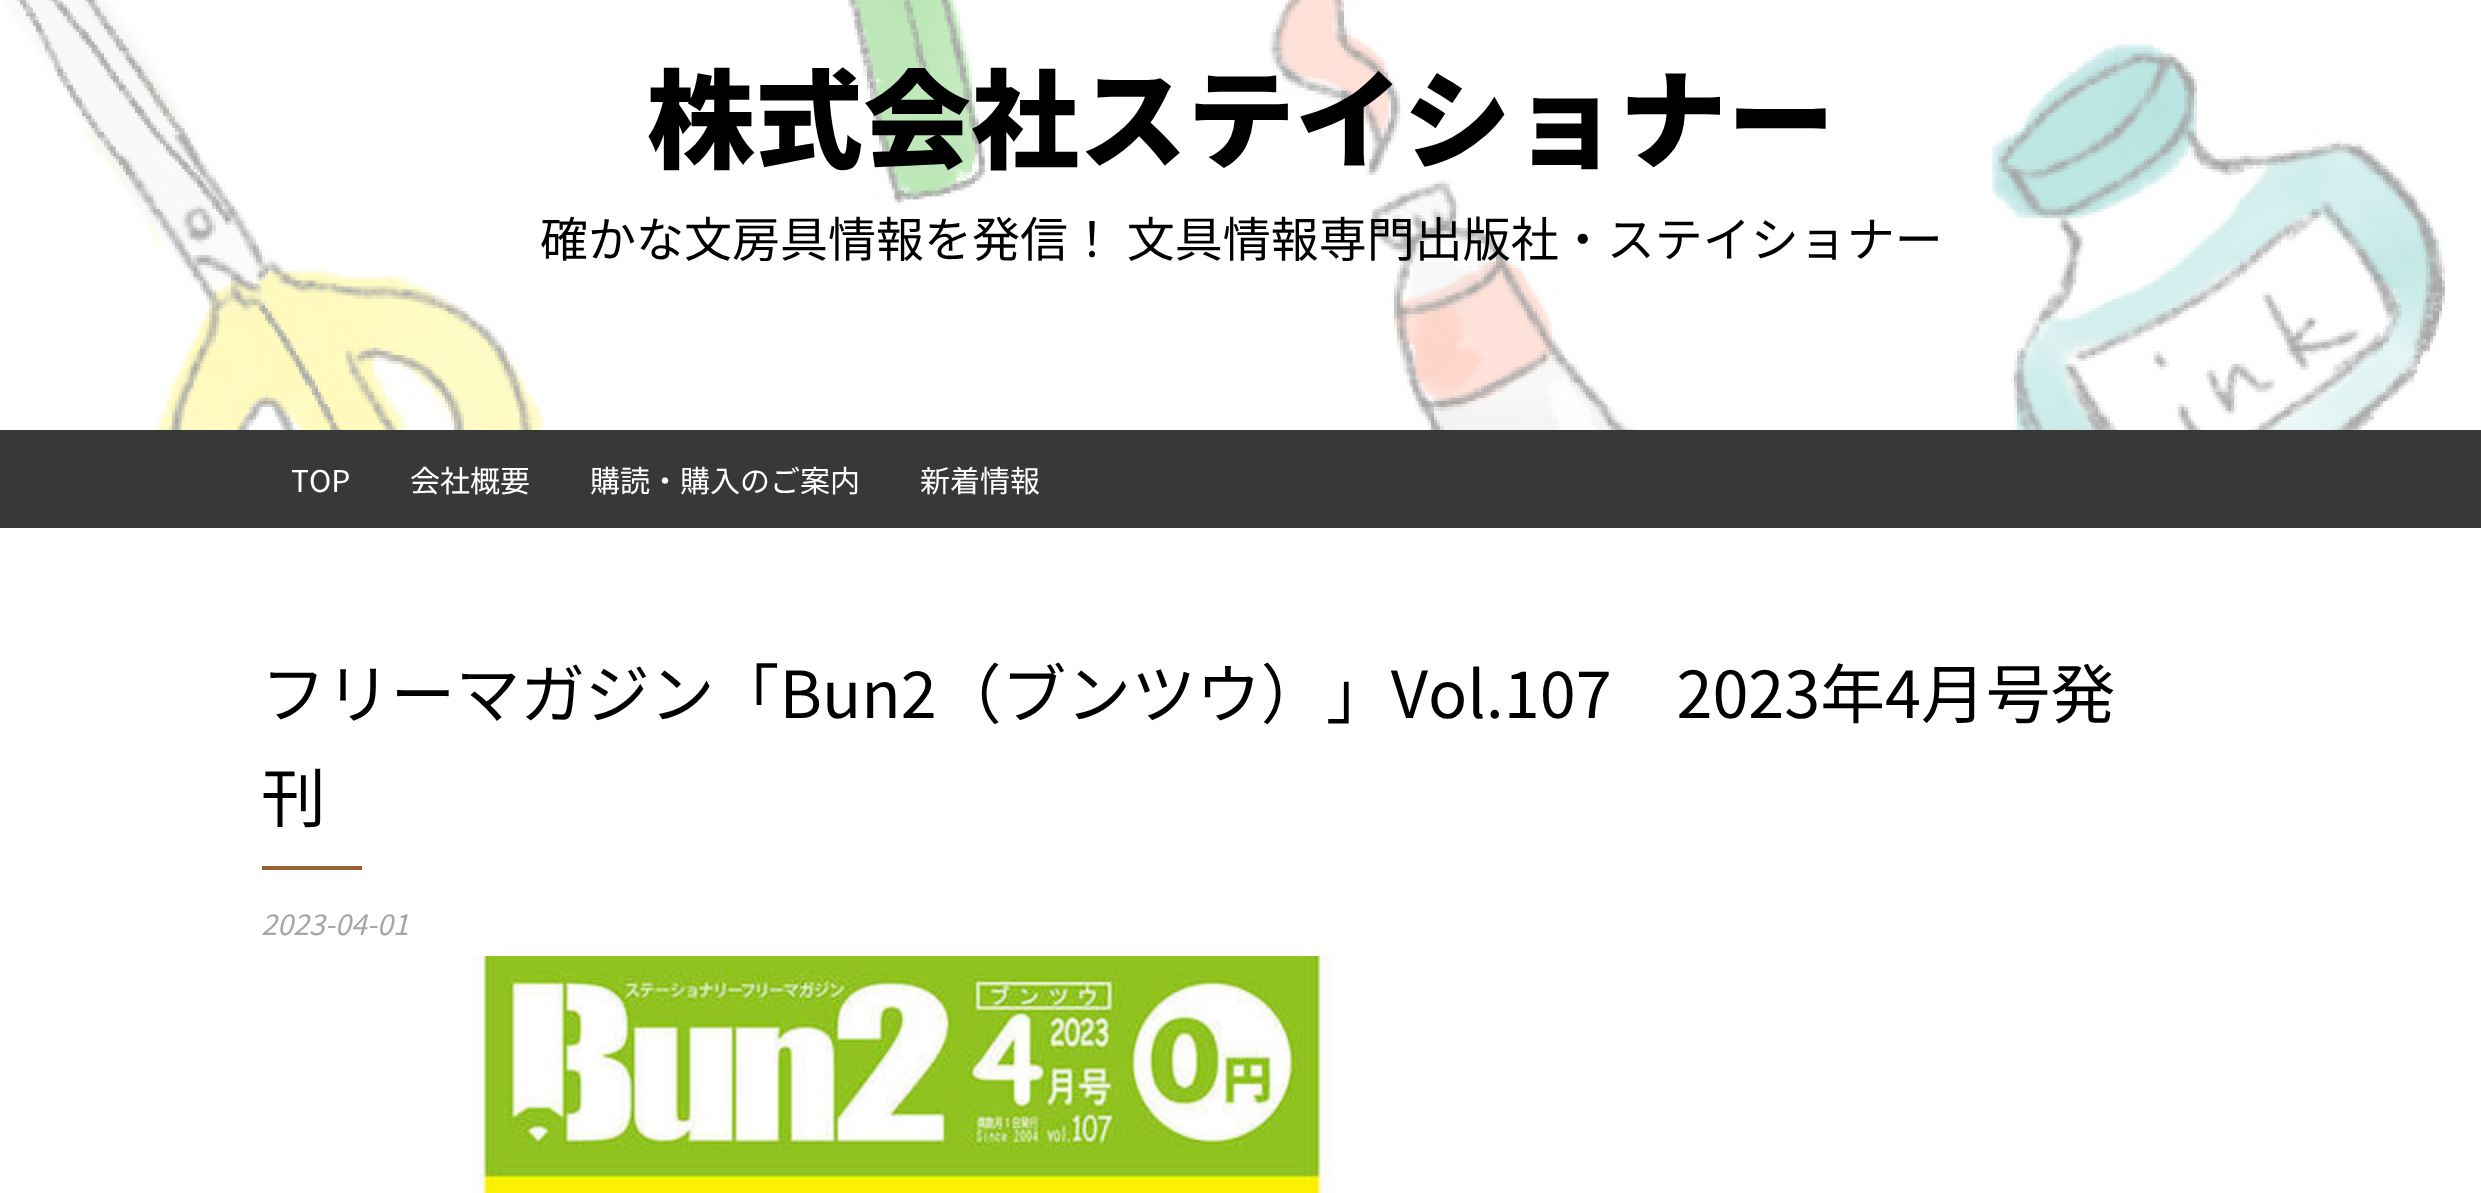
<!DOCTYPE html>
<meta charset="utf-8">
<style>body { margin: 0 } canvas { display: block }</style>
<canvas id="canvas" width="2481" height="1193"></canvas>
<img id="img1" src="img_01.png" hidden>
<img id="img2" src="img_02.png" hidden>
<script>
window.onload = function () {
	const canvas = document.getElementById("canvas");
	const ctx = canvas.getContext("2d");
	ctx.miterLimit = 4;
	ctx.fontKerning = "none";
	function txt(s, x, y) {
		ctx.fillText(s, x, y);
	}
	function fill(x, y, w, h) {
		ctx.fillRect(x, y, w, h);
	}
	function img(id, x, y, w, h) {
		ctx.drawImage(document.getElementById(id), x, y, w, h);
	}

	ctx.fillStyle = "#FFFFFF";
	fill(0, 0, 2481, 1193);
	img("img1", 5, 0, 2440, 430);
	ctx.fillStyle = "#383838";
	fill(0, 430, 2481, 98);
	ctx.fillStyle = "#996235";
	fill(262, 866, 100, 4);
	img("img2", 470, 956, 864, 237);
	ctx.font = "900 108px Noto Sans JP";
	ctx.fillStyle = "#000000";
	txt("株式会社ステイショナー", 647, 160);
	ctx.font = "48px Noto Sans JP";
	txt("確かな文房具情報を発信！ 文具情報専門出版社・ステイショナー", 540, 257);
	ctx.font = "30px Noto Sans JP";
	ctx.fillStyle = "#FFFFFF";
	txt("TOP", 291, 492);
	txt("会社概要", 410, 492);
	txt("購読・購入のご案内", 590, 492);
	txt("新着情報", 920, 492);
	ctx.font = "64.8px Noto Sans JP";
	ctx.fillStyle = "#000000";
	txt("フリーマガジン「Bun2（ブンツウ）", 261, 718);
	txt("」Vol.107　2023年4月号発", 1326, 718);
	txt("刊", 261, 822);
	ctx.font = "italic 28.75px Noto Sans JP";
	ctx.fillStyle = "#A6A6A6";
	txt("2023-04-01", 261, 935);
};
</script>
